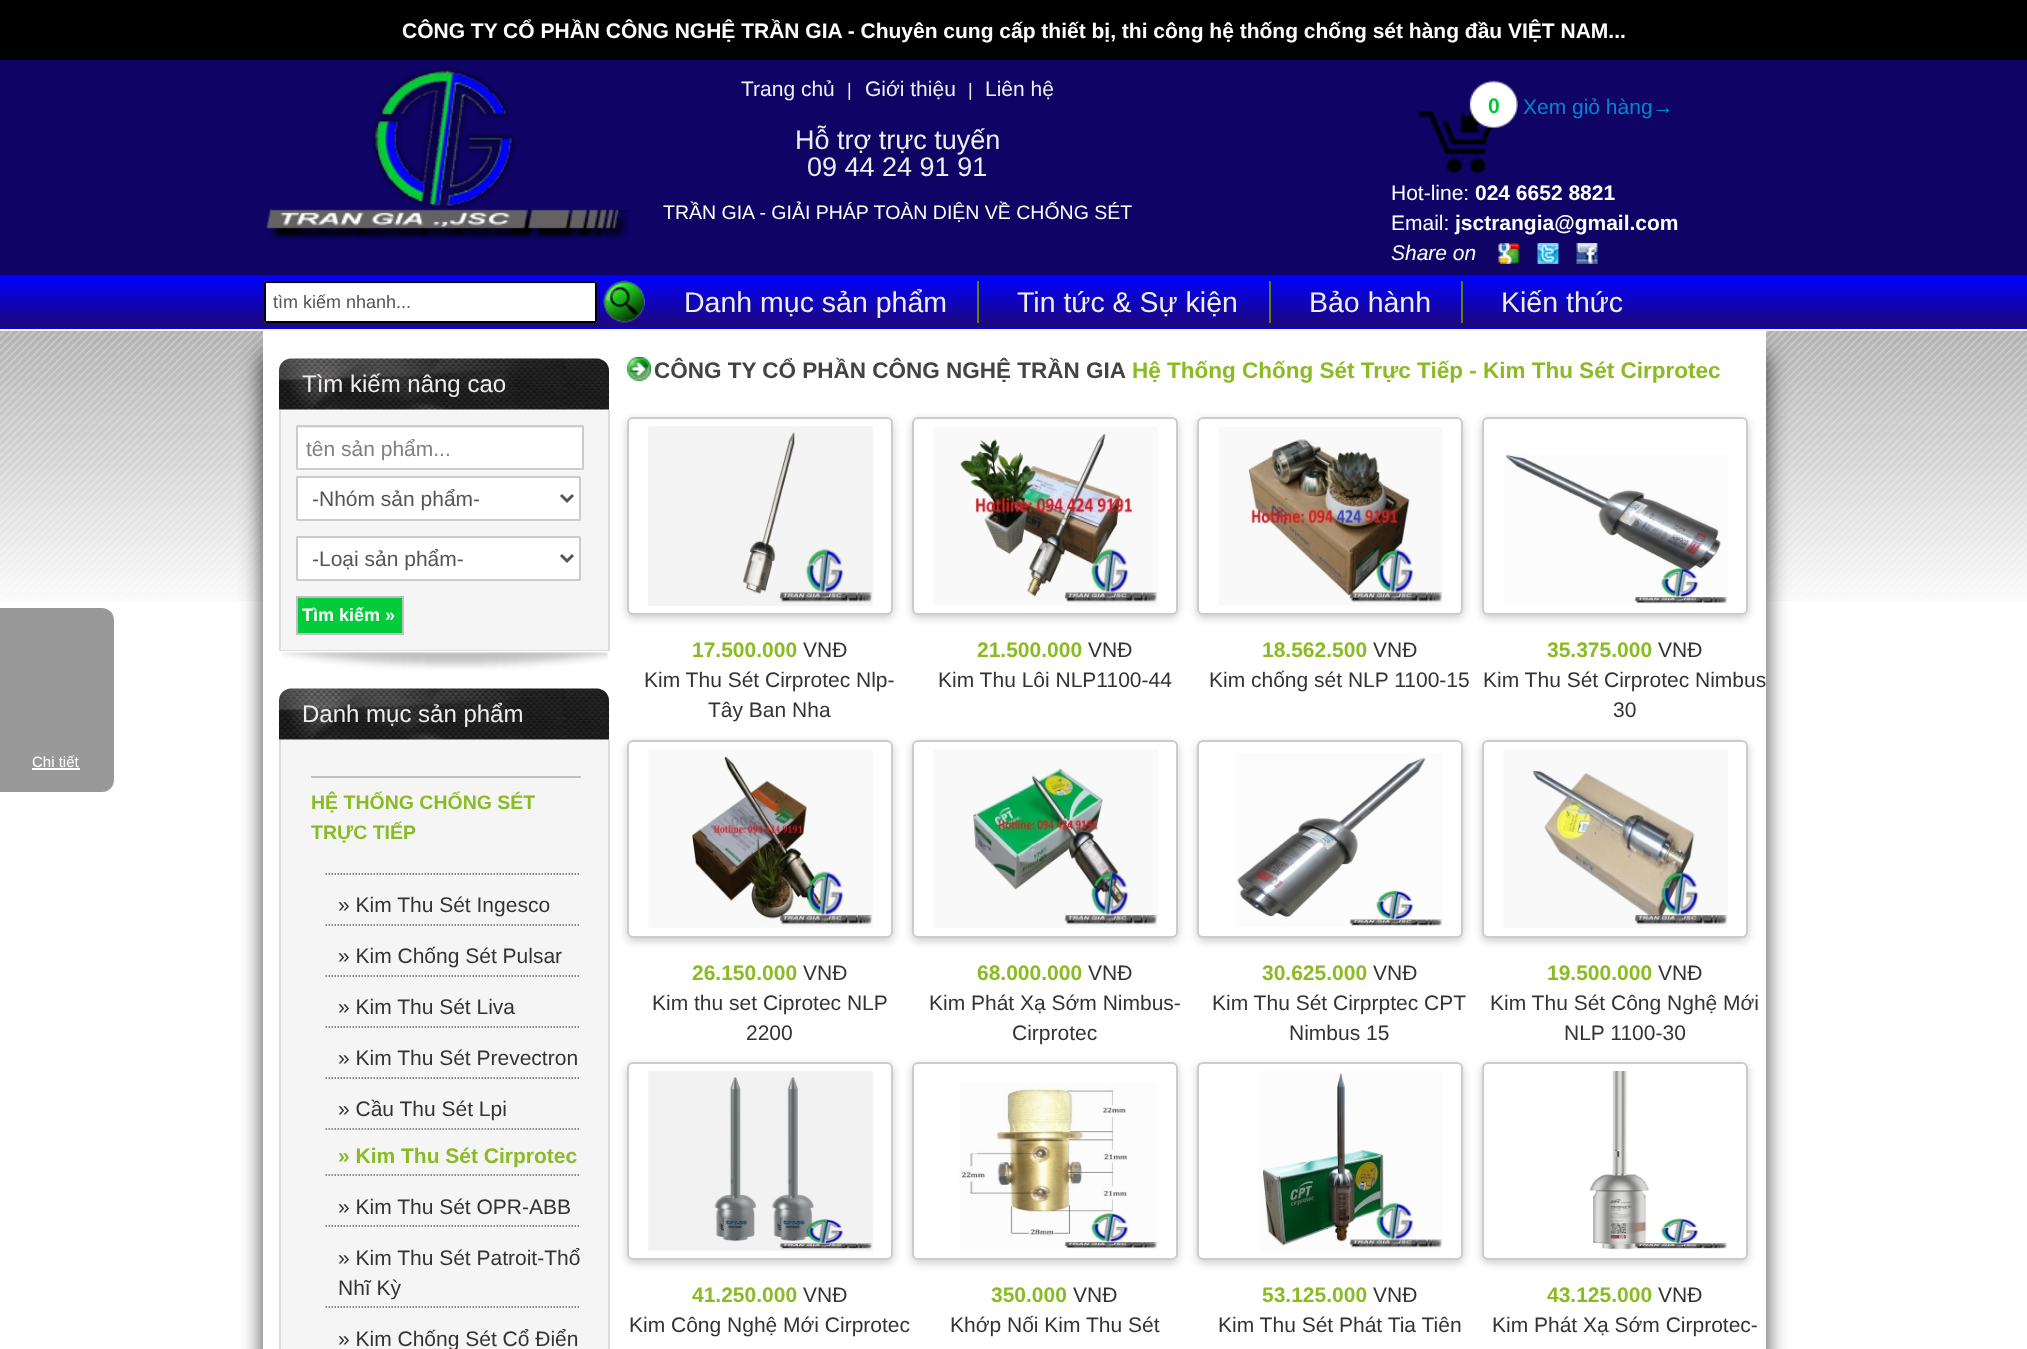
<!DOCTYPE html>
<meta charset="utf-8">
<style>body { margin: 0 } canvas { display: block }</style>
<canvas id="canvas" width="2027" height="1349"></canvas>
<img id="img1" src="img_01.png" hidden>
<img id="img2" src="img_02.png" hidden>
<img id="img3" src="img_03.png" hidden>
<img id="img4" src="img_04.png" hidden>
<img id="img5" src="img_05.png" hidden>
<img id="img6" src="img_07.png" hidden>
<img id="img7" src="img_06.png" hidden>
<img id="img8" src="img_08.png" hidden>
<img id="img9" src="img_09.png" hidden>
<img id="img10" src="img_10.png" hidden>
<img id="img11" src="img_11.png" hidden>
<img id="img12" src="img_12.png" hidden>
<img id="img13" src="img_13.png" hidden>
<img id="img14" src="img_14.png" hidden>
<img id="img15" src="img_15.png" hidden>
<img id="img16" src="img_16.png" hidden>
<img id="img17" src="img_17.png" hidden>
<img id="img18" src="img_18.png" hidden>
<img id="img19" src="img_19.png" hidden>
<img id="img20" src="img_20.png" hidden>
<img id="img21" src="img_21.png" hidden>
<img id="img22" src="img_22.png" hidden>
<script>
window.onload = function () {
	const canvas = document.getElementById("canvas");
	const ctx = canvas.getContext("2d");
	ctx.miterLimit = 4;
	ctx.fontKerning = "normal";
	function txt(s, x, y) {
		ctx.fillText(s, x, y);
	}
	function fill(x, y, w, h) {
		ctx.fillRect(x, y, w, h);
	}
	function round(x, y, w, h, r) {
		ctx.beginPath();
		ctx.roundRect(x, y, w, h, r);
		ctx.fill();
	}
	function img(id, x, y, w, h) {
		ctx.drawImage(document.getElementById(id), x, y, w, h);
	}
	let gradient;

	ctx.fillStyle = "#FFFFFF";
	fill(0, 0, 2027, 1349);
	ctx.fillStyle = "#999999";
	ctx.beginPath();
	ctx.roundRect(0, 608, 114, 184, [0, 12, 12, 0]);
	ctx.fill();
	ctx.fillStyle = "#FFFFFF";
	fill(32, 768, 48, 2);
	ctx.fillStyle = "#000000";
	fill(0, 0, 2027, 60);
	ctx.fillStyle = "#0F0366";
	fill(0, 60, 2027, 215);
	img("img1", 266, 66, 364, 174);
	img("img2", 1418, 80, 100, 93);
	img("img3", 1498, 243, 22, 21);
	img("img4", 1537, 243, 22, 21);
	img("img5", 1576, 243, 22, 21);
	ctx.fillStyle = "#0000FF";
	fill(0, 275, 2027, 54);
	gradient = ctx.createLinearGradient(1014, 276, 1014, 327);
	gradient.addColorStop(0, "#0000FF");
	gradient.addColorStop(1, "#1E0879");
	ctx.fillStyle = gradient;
	fill(0, 277, 2027, 50);
	img("img6", 0, 331, 2027, 270);
	ctx.fillStyle = "rgba(0, 0, 0, 0.75)";
	ctx.filter = "blur(11px)";
	ctx.beginPath();
	ctx.rect(263, 353, 1503, 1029);
	ctx.fill();
	ctx.filter = "none";
	ctx.fillStyle = "#FFFFFF";
	round(264, 281, 333, 42, 1.5);
	ctx.fillStyle = "#ECECEC";
	fill(266, 283, 330, 1);
	ctx.beginPath();
	ctx.roundRect(265, 282, 331, 40, 0.5);
	ctx.strokeStyle = "#000000";
	ctx.lineWidth = 2;
	ctx.stroke();
	img("img7", 603, 280, 42, 43);
	ctx.fillStyle = "#5C7E14";
	fill(977, 281, 2, 42);
	fill(1269, 281, 2, 42);
	fill(1461, 281, 2, 42);
	ctx.fillStyle = "#FFFFFF";
	fill(263, 330, 1503, 1019);
	img("img8", 279, 358, 331, 52);
	ctx.fillStyle = "#F5F5F5";
	fill(281, 410, 327, 240);
	ctx.fillStyle = "#DDDDDD";
	fill(608, 410, 2, 241);
	fill(279, 650, 330, 1);
	fill(279, 410, 2, 241);
	ctx.fillStyle = "#FFFFFF";
	round(296, 425, 288, 45, 1.5);
	ctx.fillStyle = "#ECECEC";
	fill(297, 427, 285, 1);
	ctx.beginPath();
	ctx.roundRect(297, 426, 286, 43, 0.5);
	ctx.strokeStyle = "#CCCCCC";
	ctx.stroke();
	ctx.fillStyle = "#FFFFFF";
	ctx.beginPath();
	ctx.roundRect(297, 477, 283, 43, 0.5);
	ctx.fill();
	ctx.stroke();
	ctx.beginPath();
	ctx.moveTo(561, 495);
	ctx.lineTo(567, 501);
	ctx.lineTo(573, 495);
	ctx.strokeStyle = "#555555";
	ctx.lineWidth = 3;
	ctx.stroke();
	ctx.beginPath();
	ctx.roundRect(297, 537, 283, 43, 0.5);
	ctx.fill();
	ctx.strokeStyle = "#CCCCCC";
	ctx.lineWidth = 2;
	ctx.stroke();
	ctx.beginPath();
	ctx.moveTo(561, 555);
	ctx.lineTo(567, 561);
	ctx.lineTo(573, 555);
	ctx.strokeStyle = "#555555";
	ctx.lineWidth = 3;
	ctx.stroke();
	ctx.fillStyle = "#01CC3A";
	ctx.beginPath();
	ctx.rect(297, 597, 106, 37);
	ctx.fill();
	ctx.strokeStyle = "#C0C0C0";
	ctx.lineWidth = 2;
	ctx.stroke();
	img("img9", 279, 651, 330, 19);
	img("img8", 279, 688, 331, 52);
	ctx.fillStyle = "#F5F5F5";
	fill(281, 740, 327, 609);
	ctx.fillStyle = "#DDDDDD";
	fill(608, 740, 2, 609);
	fill(279, 740, 2, 609);
	ctx.fillStyle = "#C0C0C0";
	fill(311, 776, 270, 2);
	ctx.beginPath();
	ctx.moveTo(325.5, 874);
	ctx.lineTo(580.5, 874);
	ctx.strokeStyle = "#666666";
	ctx.lineWidth = 1.5;
	ctx.setLineDash([1.5, 1.5]);
	ctx.stroke();
	ctx.beginPath();
	ctx.moveTo(325.5, 925);
	ctx.lineTo(580.5, 925);
	ctx.stroke();
	ctx.beginPath();
	ctx.moveTo(325.5, 976);
	ctx.lineTo(580.5, 976);
	ctx.stroke();
	ctx.beginPath();
	ctx.moveTo(325.5, 1027);
	ctx.lineTo(580.5, 1027);
	ctx.stroke();
	ctx.beginPath();
	ctx.moveTo(325.5, 1078);
	ctx.lineTo(580.5, 1078);
	ctx.stroke();
	ctx.beginPath();
	ctx.moveTo(325.5, 1129);
	ctx.lineTo(580.5, 1129);
	ctx.stroke();
	ctx.beginPath();
	ctx.moveTo(325.5, 1175);
	ctx.lineTo(580.5, 1175);
	ctx.stroke();
	ctx.beginPath();
	ctx.moveTo(325.5, 1226);
	ctx.lineTo(580.5, 1226);
	ctx.stroke();
	ctx.beginPath();
	ctx.moveTo(325.5, 1307);
	ctx.lineTo(580.5, 1307);
	ctx.stroke();
	img("img10", 627, 357, 24, 24);
	ctx.fillStyle = "rgba(0, 0, 0, 0.2)";
	ctx.filter = "blur(4px)";
	ctx.beginPath();
	ctx.roundRect(627, 420, 266, 198, 6);
	ctx.fill();
	ctx.filter = "none";
	ctx.fillStyle = "#FFFFFF";
	ctx.beginPath();
	ctx.roundRect(628, 418, 264, 196, 5);
	ctx.fill();
	ctx.strokeStyle = "#CCCCCC";
	ctx.lineWidth = 2;
	ctx.setLineDash([]);
	ctx.stroke();
	img("img11", 648, 426, 225, 180);
	ctx.fillStyle = "rgba(0, 0, 0, 0.2)";
	ctx.filter = "blur(4px)";
	ctx.beginPath();
	ctx.roundRect(912, 420, 266, 198, 6);
	ctx.fill();
	ctx.filter = "none";
	ctx.fillStyle = "#FFFFFF";
	ctx.beginPath();
	ctx.roundRect(913, 418, 264, 196, 5);
	ctx.fill();
	ctx.stroke();
	img("img12", 933, 426, 225, 180);
	ctx.fillStyle = "rgba(0, 0, 0, 0.2)";
	ctx.filter = "blur(4px)";
	ctx.beginPath();
	ctx.roundRect(1197, 420, 266, 198, 6);
	ctx.fill();
	ctx.filter = "none";
	ctx.fillStyle = "#FFFFFF";
	ctx.beginPath();
	ctx.roundRect(1198, 418, 264, 196, 5);
	ctx.fill();
	ctx.stroke();
	img("img13", 1218, 427, 225, 179);
	ctx.fillStyle = "rgba(0, 0, 0, 0.2)";
	ctx.filter = "blur(4px)";
	ctx.beginPath();
	ctx.roundRect(1482, 420, 266, 198, 6);
	ctx.fill();
	ctx.filter = "none";
	ctx.fillStyle = "#FFFFFF";
	ctx.beginPath();
	ctx.roundRect(1483, 418, 264, 196, 5);
	ctx.fill();
	ctx.stroke();
	img("img14", 1503, 454, 225, 150);
	ctx.fillStyle = "rgba(0, 0, 0, 0.2)";
	ctx.filter = "blur(4px)";
	ctx.beginPath();
	ctx.roundRect(627, 743, 266, 198, 6);
	ctx.fill();
	ctx.filter = "none";
	ctx.fillStyle = "#FFFFFF";
	ctx.beginPath();
	ctx.roundRect(628, 741, 264, 196, 5);
	ctx.fill();
	ctx.stroke();
	img("img15", 648, 749, 225, 179);
	ctx.fillStyle = "rgba(0, 0, 0, 0.2)";
	ctx.filter = "blur(4px)";
	ctx.beginPath();
	ctx.roundRect(912, 743, 266, 198, 6);
	ctx.fill();
	ctx.filter = "none";
	ctx.fillStyle = "#FFFFFF";
	ctx.beginPath();
	ctx.roundRect(913, 741, 264, 196, 5);
	ctx.fill();
	ctx.stroke();
	img("img16", 933, 749, 225, 179);
	ctx.fillStyle = "rgba(0, 0, 0, 0.2)";
	ctx.filter = "blur(4px)";
	ctx.beginPath();
	ctx.roundRect(1197, 743, 266, 198, 6);
	ctx.fill();
	ctx.filter = "none";
	ctx.fillStyle = "#FFFFFF";
	ctx.beginPath();
	ctx.roundRect(1198, 741, 264, 196, 5);
	ctx.fill();
	ctx.stroke();
	img("img17", 1236, 753, 207, 174);
	ctx.fillStyle = "rgba(0, 0, 0, 0.2)";
	ctx.filter = "blur(4px)";
	ctx.beginPath();
	ctx.roundRect(1482, 743, 266, 198, 6);
	ctx.fill();
	ctx.filter = "none";
	ctx.fillStyle = "#FFFFFF";
	ctx.beginPath();
	ctx.roundRect(1483, 741, 264, 196, 5);
	ctx.fill();
	ctx.stroke();
	img("img18", 1503, 749, 225, 180);
	ctx.fillStyle = "rgba(0, 0, 0, 0.2)";
	ctx.filter = "blur(4px)";
	ctx.beginPath();
	ctx.roundRect(627, 1065, 266, 198, 6);
	ctx.fill();
	ctx.filter = "none";
	ctx.fillStyle = "#FFFFFF";
	ctx.beginPath();
	ctx.roundRect(628, 1063, 264, 196, 5);
	ctx.fill();
	ctx.stroke();
	img("img19", 648, 1071, 225, 180);
	ctx.fillStyle = "rgba(0, 0, 0, 0.2)";
	ctx.filter = "blur(4px)";
	ctx.beginPath();
	ctx.roundRect(912, 1065, 266, 198, 6);
	ctx.fill();
	ctx.filter = "none";
	ctx.fillStyle = "#FFFFFF";
	ctx.beginPath();
	ctx.roundRect(913, 1063, 264, 196, 5);
	ctx.fill();
	ctx.stroke();
	img("img20", 959, 1083, 199, 166);
	ctx.fillStyle = "rgba(0, 0, 0, 0.2)";
	ctx.filter = "blur(4px)";
	ctx.beginPath();
	ctx.roundRect(1197, 1065, 266, 198, 6);
	ctx.fill();
	ctx.filter = "none";
	ctx.fillStyle = "#FFFFFF";
	ctx.beginPath();
	ctx.roundRect(1198, 1063, 264, 196, 5);
	ctx.fill();
	ctx.stroke();
	img("img21", 1259, 1071, 184, 180);
	ctx.fillStyle = "rgba(0, 0, 0, 0.2)";
	ctx.filter = "blur(4px)";
	ctx.beginPath();
	ctx.roundRect(1482, 1065, 266, 198, 6);
	ctx.fill();
	ctx.filter = "none";
	ctx.fillStyle = "#FFFFFF";
	ctx.beginPath();
	ctx.roundRect(1483, 1063, 264, 196, 5);
	ctx.fill();
	ctx.stroke();
	img("img22", 1590, 1071, 138, 179);
	ctx.font = "15px Liberation Sans";
	txt("Chi tiết", 32, 767);
	ctx.font = "bold 21px Liberation Sans";
	txt("CÔNG TY CỔ PHẦN CÔNG NGHỆ TRẦN GIA - Chuyên cung cấp thiết bị, thi công hệ thống chống sét hàng đầu VIỆT NAM...", 402, 38);
	ctx.font = "21px Liberation Sans";
	ctx.fillStyle = "#EEEEEE";
	txt("Trang chủ", 741, 96);
	ctx.font = "18px Liberation Sans";
	txt("|", 847, 96);
	ctx.font = "21px Liberation Sans";
	txt("Giới thiệu", 865, 96);
	ctx.font = "18px Liberation Sans";
	txt("|", 968, 96);
	ctx.font = "21px Liberation Sans";
	txt("Liên hệ", 985, 96);
	ctx.font = "27px Liberation Sans";
	txt("Hỗ trợ trực tuyến", 795, 149);
	txt("09 44 24 91 91", 807, 176);
	ctx.font = "19.5px Liberation Sans";
	ctx.fillStyle = "#FFFFFF";
	txt("TRẦN GIA - GIẢI PHÁP TOÀN DIỆN VỀ CHỐNG SÉT", 663, 219);
	ctx.font = "bold 21px Liberation Sans";
	ctx.fillStyle = "#00C832";
	txt("0", 1488, 113);
	ctx.font = "21px Liberation Sans";
	ctx.fillStyle = "#0088CC";
	txt("Xem giỏ hàng→", 1523, 114);
	ctx.fillStyle = "#FFFFFF";
	txt("Hot-line:", 1391, 200);
	ctx.font = "bold 21px Liberation Sans";
	txt("024 6652 8821", 1475, 200);
	ctx.font = "21px Liberation Sans";
	txt("Email:", 1391, 230);
	ctx.font = "bold 21px Liberation Sans";
	txt("jsctrangia@gmail.com", 1455, 230);
	ctx.font = "italic 21px Liberation Sans";
	txt("Share on", 1391, 260);
	ctx.font = "18px Liberation Sans";
	ctx.fillStyle = "#555555";
	txt("tìm kiếm nhanh...", 273, 308);
	ctx.font = "28.5px Liberation Sans";
	ctx.fillStyle = "#EEEEEE";
	txt("Danh mục sản phẩm", 684, 312);
	txt("Tin tức & Sự kiện", 1017, 312);
	txt("Bảo hành", 1309, 312);
	txt("Kiến thức", 1501, 312);
	ctx.font = "24px Liberation Sans";
	txt("Tìm kiếm nâng cao", 302, 392);
	ctx.font = "21px Liberation Sans";
	ctx.fillStyle = "#808080";
	txt("tên sản phẩm...", 306, 456);
	ctx.fillStyle = "#555555";
	txt("-Nhóm sản phẩm-", 312, 506);
	txt("-Loại sản phẩm-", 312, 566);
	ctx.font = "bold 18px Liberation Sans";
	ctx.fillStyle = "#FFFFFF";
	txt("Tìm kiếm »", 302, 621);
	ctx.font = "24px Liberation Sans";
	ctx.fillStyle = "#EEEEEE";
	txt("Danh mục sản phẩm", 302, 722);
	ctx.font = "bold 19.5px Liberation Sans";
	ctx.fillStyle = "#8BBB23";
	txt("HỆ THỐNG CHỐNG SÉT", 311, 809);
	txt("TRỰC TIẾP", 311, 839);
	ctx.font = "21px Liberation Sans";
	ctx.fillStyle = "#333333";
	txt("» Kim Thu Sét Ingesco", 338, 912);
	txt("» Kim Chống Sét Pulsar", 338, 963);
	txt("» Kim Thu Sét Liva", 338, 1014);
	txt("» Kim Thu Sét Prevectron", 338, 1065);
	txt("» Cầu Thu Sét Lpi", 338, 1116);
	ctx.font = "bold 21px Liberation Sans";
	ctx.fillStyle = "#8BBB23";
	txt("» Kim Thu Sét Cirprotec", 338, 1163);
	ctx.font = "21px Liberation Sans";
	ctx.fillStyle = "#333333";
	txt("» Kim Thu Sét OPR-ABB", 338, 1214);
	txt("» Kim Thu Sét Patroit-Thổ", 338, 1265);
	txt("Nhĩ Kỳ", 338, 1295);
	txt("» Kim Chống Sét Cổ Điển", 338, 1346);
	ctx.font = "bold 22.5px Liberation Sans";
	ctx.fillStyle = "#434343";
	txt("CÔNG TY CỔ PHẦN CÔNG NGHỆ TRẦN GIA", 654, 378);
	ctx.fillStyle = "#8BBB23";
	txt("Hệ Thống Chống Sét Trực Tiếp - Kim Thu Sét Cirprotec", 1132, 378);
	ctx.font = "bold 21px Liberation Sans";
	txt("17.500.000", 692, 657);
	ctx.font = "21px Liberation Sans";
	ctx.fillStyle = "#333333";
	txt("VNĐ", 803, 657);
	txt("Kim Thu Sét Cirprotec Nlp-", 644, 687);
	txt("Tây Ban Nha", 708, 717);
	ctx.font = "bold 21px Liberation Sans";
	ctx.fillStyle = "#8BBB23";
	txt("21.500.000", 977, 657);
	ctx.font = "21px Liberation Sans";
	ctx.fillStyle = "#333333";
	txt("VNĐ", 1088, 657);
	txt("Kim Thu Lôi NLP1100-44", 938, 687);
	ctx.font = "bold 21px Liberation Sans";
	ctx.fillStyle = "#8BBB23";
	txt("18.562.500", 1262, 657);
	ctx.font = "21px Liberation Sans";
	ctx.fillStyle = "#333333";
	txt("VNĐ", 1373, 657);
	txt("Kim chống sét NLP 1100-15", 1209, 687);
	ctx.font = "bold 21px Liberation Sans";
	ctx.fillStyle = "#8BBB23";
	txt("35.375.000", 1547, 657);
	ctx.font = "21px Liberation Sans";
	ctx.fillStyle = "#333333";
	txt("VNĐ", 1658, 657);
	txt("Kim Thu Sét Cirprotec Nimbus", 1483, 687);
	txt("30", 1613, 717);
	ctx.font = "bold 21px Liberation Sans";
	ctx.fillStyle = "#8BBB23";
	txt("26.150.000", 692, 980);
	ctx.font = "21px Liberation Sans";
	ctx.fillStyle = "#333333";
	txt("VNĐ", 803, 980);
	txt("Kim thu set Ciprotec NLP", 652, 1010);
	txt("2200", 746, 1040);
	ctx.font = "bold 21px Liberation Sans";
	ctx.fillStyle = "#8BBB23";
	txt("68.000.000", 977, 980);
	ctx.font = "21px Liberation Sans";
	ctx.fillStyle = "#333333";
	txt("VNĐ", 1088, 980);
	txt("Kim Phát Xạ Sớm Nimbus-", 929, 1010);
	txt("Cirprotec", 1012, 1040);
	ctx.font = "bold 21px Liberation Sans";
	ctx.fillStyle = "#8BBB23";
	txt("30.625.000", 1262, 980);
	ctx.font = "21px Liberation Sans";
	ctx.fillStyle = "#333333";
	txt("VNĐ", 1373, 980);
	txt("Kim Thu Sét Cirprptec CPT", 1212, 1010);
	txt("Nimbus 15", 1289, 1040);
	ctx.font = "bold 21px Liberation Sans";
	ctx.fillStyle = "#8BBB23";
	txt("19.500.000", 1547, 980);
	ctx.font = "21px Liberation Sans";
	ctx.fillStyle = "#333333";
	txt("VNĐ", 1658, 980);
	txt("Kim Thu Sét Công Nghệ Mới", 1490, 1010);
	txt("NLP 1100-30", 1564, 1040);
	ctx.font = "bold 21px Liberation Sans";
	ctx.fillStyle = "#8BBB23";
	txt("41.250.000", 692, 1302);
	ctx.font = "21px Liberation Sans";
	ctx.fillStyle = "#333333";
	txt("VNĐ", 803, 1302);
	txt("Kim Công Nghệ Mới Cirprotec", 629, 1332);
	ctx.font = "bold 21px Liberation Sans";
	ctx.fillStyle = "#8BBB23";
	txt("350.000", 991, 1302);
	ctx.font = "21px Liberation Sans";
	ctx.fillStyle = "#333333";
	txt("VNĐ", 1073, 1302);
	txt("Khớp Nối Kim Thu Sét", 950, 1332);
	ctx.font = "bold 21px Liberation Sans";
	ctx.fillStyle = "#8BBB23";
	txt("53.125.000", 1262, 1302);
	ctx.font = "21px Liberation Sans";
	ctx.fillStyle = "#333333";
	txt("VNĐ", 1373, 1302);
	txt("Kim Thu Sét Phát Tia Tiên", 1218, 1332);
	ctx.font = "bold 21px Liberation Sans";
	ctx.fillStyle = "#8BBB23";
	txt("43.125.000", 1547, 1302);
	ctx.font = "21px Liberation Sans";
	ctx.fillStyle = "#333333";
	txt("VNĐ", 1658, 1302);
	txt("Kim Phát Xạ Sớm Cirprotec-", 1492, 1332);
};
</script>
